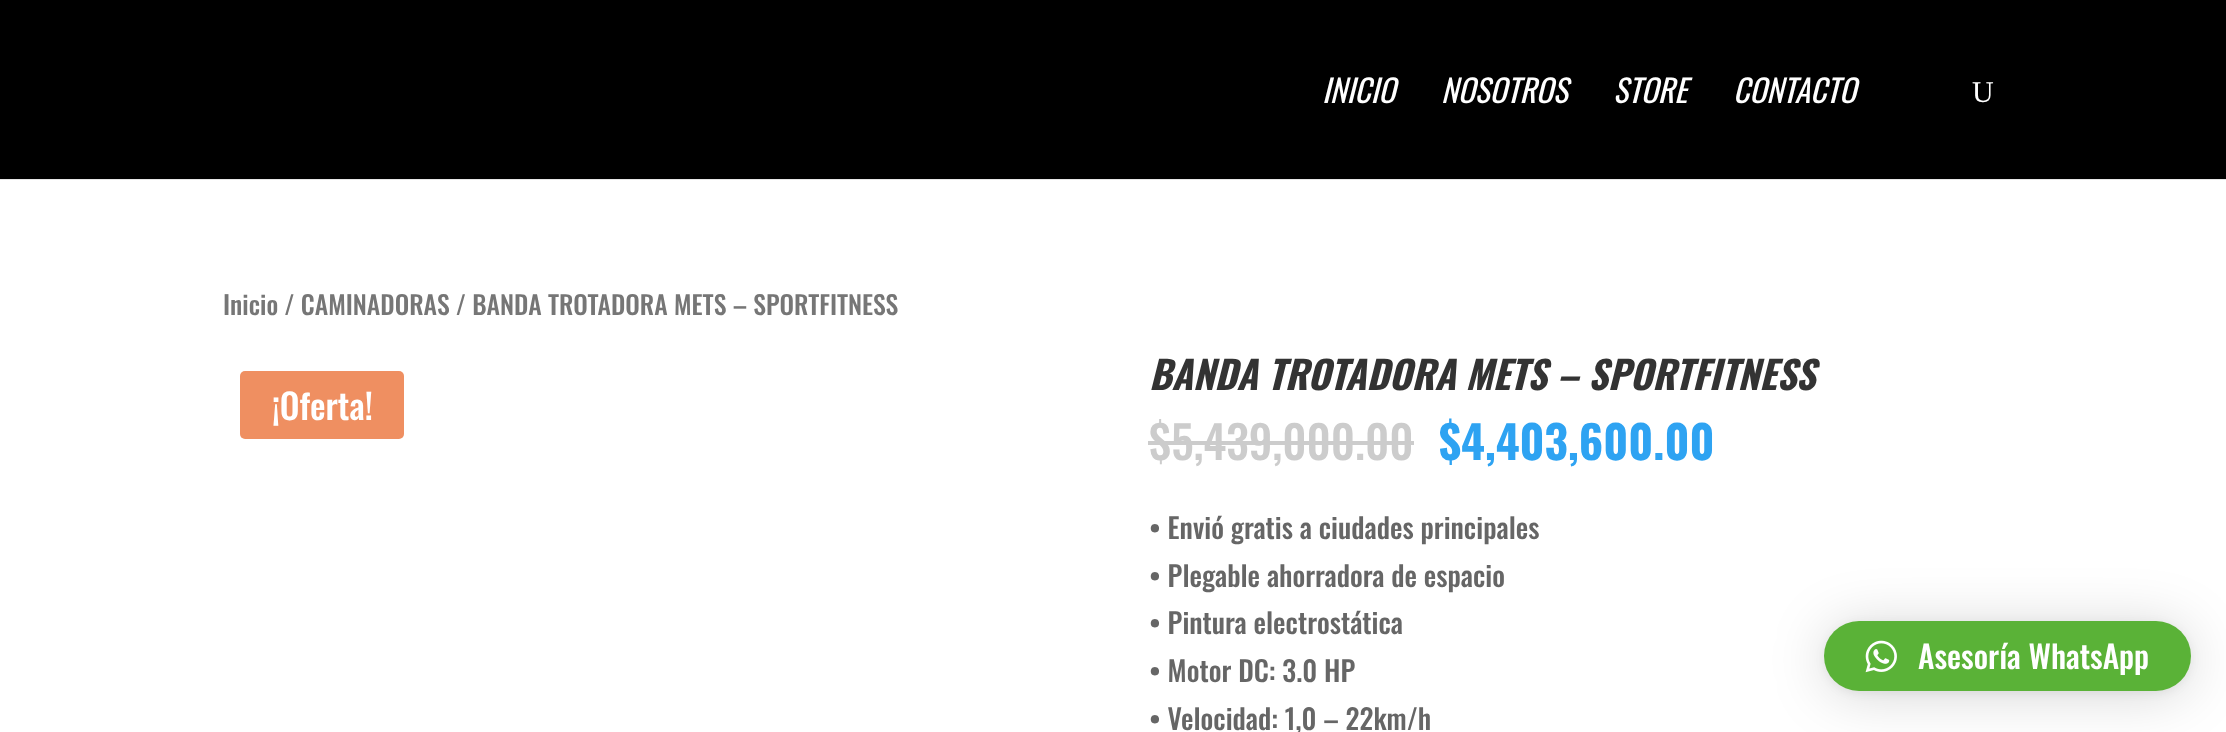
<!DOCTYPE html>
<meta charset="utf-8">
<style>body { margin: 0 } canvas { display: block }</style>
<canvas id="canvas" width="2226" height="732"></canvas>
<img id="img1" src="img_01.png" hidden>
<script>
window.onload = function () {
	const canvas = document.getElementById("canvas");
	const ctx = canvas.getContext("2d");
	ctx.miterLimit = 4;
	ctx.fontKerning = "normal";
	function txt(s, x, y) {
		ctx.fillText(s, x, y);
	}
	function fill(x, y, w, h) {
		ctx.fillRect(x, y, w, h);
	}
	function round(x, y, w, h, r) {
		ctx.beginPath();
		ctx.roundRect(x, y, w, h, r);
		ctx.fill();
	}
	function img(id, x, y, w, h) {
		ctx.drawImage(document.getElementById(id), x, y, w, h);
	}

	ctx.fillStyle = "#FFFFFF";
	fill(0, 0, 2226, 732);
	ctx.fillStyle = "#E6E6E6";
	fill(0, 179, 2226, 1);
	ctx.fillStyle = "#000000";
	fill(0, 0, 2226, 179);
	ctx.fillStyle = "#EF8F61";
	round(240, 371, 164, 68, 5);
	ctx.fillStyle = "#CCCCCC";
	fill(1148, 441, 266, 4);
	ctx.fillStyle = "rgba(0, 0, 0, 0.16)";
	ctx.filter = "blur(28px)";
	ctx.beginPath();
	ctx.roundRect(1824, 625, 367, 70, 35);
	ctx.fill();
	ctx.filter = "none";
	ctx.fillStyle = "rgba(0, 0, 0, 0.06)";
	ctx.filter = "blur(5px)";
	ctx.beginPath();
	ctx.roundRect(1824, 623, 367, 70, 35);
	ctx.fill();
	ctx.filter = "none";
	ctx.fillStyle = "#5AB237";
	round(1824, 621, 367, 70, 35);
	img("img1", 1865, 640, 32, 33);
	ctx.font = "italic 31.5px Oswald";
	ctx.fillStyle = "#FFFFFF";
	txt("INICIO", 1322, 103);
	txt("NOSOTROS", 1441, 103);
	txt("STORE", 1613, 103);
	txt("CONTACTO", 1733, 103);
	ctx.font = "30px Liberation Serif";
	txt("U", 1972, 102);
	ctx.font = "500 25.75px Oswald";
	ctx.fillStyle = "#767676";
	txt("Inicio / CAMINADORAS / BANDA TROTADORA METS – SPORTFITNESS", 223, 315);
	ctx.font = "500 35px Oswald";
	ctx.fillStyle = "#FFFFFF";
	txt("¡Oferta!", 272, 420);
	ctx.font = "italic bold 38.5px Oswald";
	ctx.fillStyle = "#333333";
	txt("BANDA TROTADORA METS – SPORTFITNESS", 1149, 390);
	ctx.font = "500 45.5px Oswald";
	ctx.fillStyle = "#CCCCCC";
	txt("$5,439,000.00", 1149, 460);
	ctx.font = "bold 45.5px Oswald";
	ctx.fillStyle = "#2EA3F2";
	txt("$4,403,600.00", 1439, 460);
	ctx.font = "500 28px Oswald";
	ctx.fillStyle = "#666666";
	txt("• Envió gratis a ciudades principales", 1149, 539);
	txt("• Plegable ahorradora de espacio", 1149, 587);
	txt("• Pintura electrostática", 1149, 634);
	txt("• Motor DC: 3.0 HP", 1149, 682);
	txt("• Velocidad: 1,0 – 22km/h", 1149, 730);
	ctx.font = "500 31.5px Oswald";
	ctx.fillStyle = "#FFFFFF";
	txt("Asesoría WhatsApp", 1918, 669);
};
</script>
